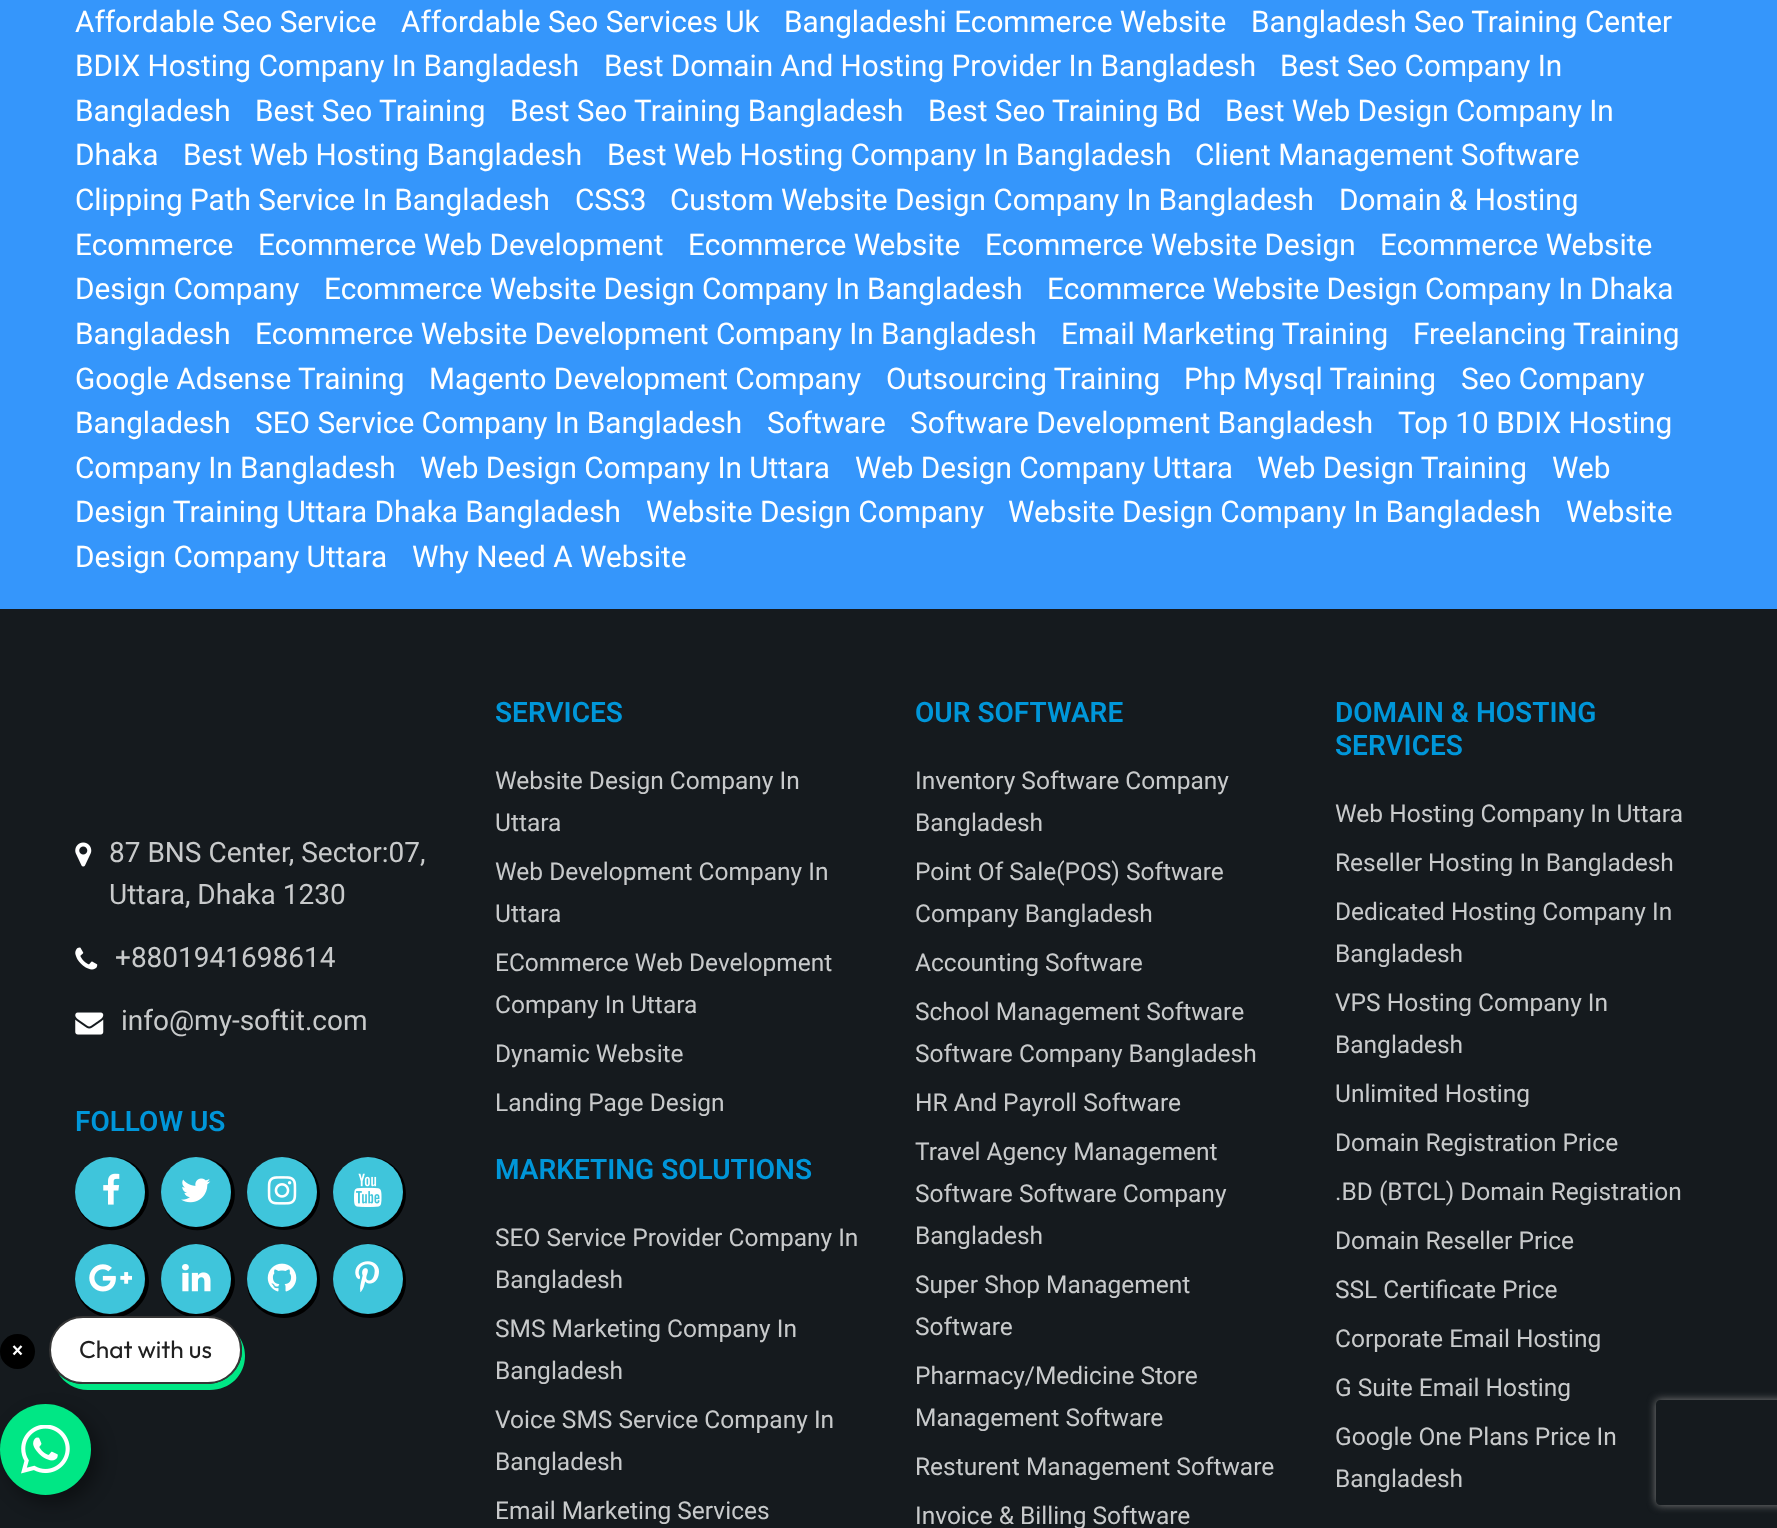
<!DOCTYPE html>
<meta charset="utf-8">
<style>body { margin: 0 } canvas { display: block }</style>
<canvas id="canvas" width="1777" height="1528"></canvas>
<img id="img1" src="img_01.png" hidden>
<img id="img2" src="img_02.png" hidden>
<img id="img3" src="img_03.png" hidden>
<img id="img4" src="img_04.png" hidden>
<img id="img5" src="img_05.png" hidden>
<img id="img6" src="img_06.png" hidden>
<img id="img7" src="img_07.png" hidden>
<img id="img8" src="img_08.png" hidden>
<img id="img9" src="img_09.png" hidden>
<img id="img10" src="img_10.png" hidden>
<img id="img11" src="img_11.png" hidden>
<img id="img12" src="img_12.png" hidden>
<script>
window.onload = function () {
	const canvas = document.getElementById("canvas");
	const ctx = canvas.getContext("2d");
	ctx.miterLimit = 4;
	ctx.fontKerning = "normal";
	function txt(s, x, y) {
		ctx.fillText(s, x, y);
	}
	function fill(x, y, w, h) {
		ctx.fillRect(x, y, w, h);
	}
	function img(id, x, y, w, h) {
		ctx.drawImage(document.getElementById(id), x, y, w, h);
	}

	ctx.fillStyle = "#3596FB";
	fill(0, 0, 1777, 1528);
	ctx.fillStyle = "#151A1E";
	fill(0, 609, 1777, 919);
	img("img1", 75, 842, 17, 25);
	img("img2", 75, 947, 23, 23);
	img("img3", 75, 1012, 29, 23);
	ctx.fillStyle = "#000000";
	ctx.beginPath();
	ctx.moveTo(76, 1187);
	ctx.bezierCurveTo(74, 1199, 77, 1211, 86, 1219);
	ctx.bezierCurveTo(111, 1245, 155, 1222, 148, 1186);
	ctx.bezierCurveTo(147, 1180, 144, 1174, 139, 1169);
	ctx.bezierCurveTo(133, 1162, 124, 1158, 115, 1157);
	ctx.bezierCurveTo(132, 1160, 145, 1174, 145, 1192);
	ctx.bezierCurveTo(145, 1211, 130, 1227, 110, 1227);
	ctx.bezierCurveTo(91, 1227, 75, 1211, 75, 1192);
	ctx.closePath();
	ctx.fill();
	ctx.fillStyle = "#3FC5DB";
	ctx.beginPath();
	ctx.arc(110, 1192, 35, 0, Math.PI * 2);
	ctx.fill();
	img("img4", 103, 1173, 17, 32);
	ctx.fillStyle = "#000000";
	ctx.beginPath();
	ctx.moveTo(161, 1193);
	ctx.bezierCurveTo(161, 1205, 167, 1217, 177, 1224);
	ctx.bezierCurveTo(204, 1242, 241, 1219, 234, 1186);
	ctx.bezierCurveTo(233, 1180, 230, 1173, 225, 1168);
	ctx.bezierCurveTo(219, 1162, 210, 1158, 201, 1157);
	ctx.bezierCurveTo(218, 1159, 231, 1174, 231, 1192);
	ctx.bezierCurveTo(231, 1211, 215, 1227, 196, 1227);
	ctx.bezierCurveTo(177, 1227, 161, 1212, 161, 1193);
	ctx.closePath();
	ctx.fill();
	ctx.fillStyle = "#3FC5DB";
	ctx.beginPath();
	ctx.arc(196, 1192, 35, 0, Math.PI * 2);
	ctx.fill();
	img("img5", 181, 1178, 30, 25);
	ctx.fillStyle = "#000000";
	ctx.beginPath();
	ctx.moveTo(247, 1197);
	ctx.bezierCurveTo(249, 1216, 265, 1230, 284, 1230);
	ctx.bezierCurveTo(304, 1230, 320, 1214, 320, 1194);
	ctx.bezierCurveTo(320, 1175, 306, 1159, 287, 1157);
	ctx.bezierCurveTo(304, 1160, 317, 1174, 317, 1192);
	ctx.bezierCurveTo(317, 1211, 301, 1227, 282, 1227);
	ctx.bezierCurveTo(264, 1227, 250, 1214, 247, 1197);
	ctx.closePath();
	ctx.fill();
	ctx.fillStyle = "#3FC5DB";
	ctx.beginPath();
	ctx.arc(282, 1192, 35, 0, Math.PI * 2);
	ctx.fill();
	img("img6", 267, 1176, 30, 29);
	ctx.fillStyle = "#000000";
	ctx.beginPath();
	ctx.moveTo(334, 1202);
	ctx.bezierCurveTo(338, 1218, 352, 1230, 370, 1230);
	ctx.bezierCurveTo(390, 1230, 406, 1214, 406, 1194);
	ctx.bezierCurveTo(406, 1174, 391, 1159, 373, 1157);
	ctx.bezierCurveTo(390, 1160, 402, 1174, 402, 1192);
	ctx.bezierCurveTo(402, 1211, 387, 1227, 368, 1227);
	ctx.bezierCurveTo(352, 1227, 338, 1216, 334, 1202);
	ctx.closePath();
	ctx.fill();
	ctx.fillStyle = "#3FC5DB";
	ctx.beginPath();
	ctx.arc(368, 1192, 35, 0, Math.PI * 2);
	ctx.fill();
	img("img7", 354, 1173, 28, 34);
	ctx.fillStyle = "#000000";
	ctx.beginPath();
	ctx.moveTo(112, 1244);
	ctx.lineTo(105, 1245);
	ctx.bezierCurveTo(138, 1240, 159, 1280, 135, 1304);
	ctx.bezierCurveTo(130, 1309, 124, 1312, 117, 1314);
	ctx.bezierCurveTo(108, 1315, 98, 1314, 91, 1308);
	ctx.bezierCurveTo(80, 1301, 74, 1288, 76, 1274);
	ctx.lineTo(75, 1281);
	ctx.bezierCurveTo(75, 1301, 92, 1318, 112, 1318);
	ctx.bezierCurveTo(132, 1318, 149, 1301, 149, 1281);
	ctx.bezierCurveTo(149, 1261, 132, 1244, 112, 1244);
	ctx.closePath();
	ctx.fill();
	ctx.fillStyle = "#3FC5DB";
	ctx.beginPath();
	ctx.arc(110, 1279, 35, 0, Math.PI * 2);
	ctx.fill();
	img("img8", 89, 1264, 43, 28);
	ctx.fillStyle = "#000000";
	ctx.beginPath();
	ctx.moveTo(198, 1244);
	ctx.lineTo(192, 1244);
	ctx.lineTo(196, 1244);
	ctx.bezierCurveTo(215, 1244, 231, 1260, 231, 1279);
	ctx.bezierCurveTo(231, 1299, 215, 1314, 196, 1314);
	ctx.bezierCurveTo(177, 1314, 161, 1299, 161, 1280);
	ctx.lineTo(161, 1281);
	ctx.bezierCurveTo(161, 1301, 178, 1318, 198, 1318);
	ctx.bezierCurveTo(218, 1318, 235, 1301, 235, 1281);
	ctx.bezierCurveTo(235, 1261, 218, 1244, 198, 1244);
	ctx.closePath();
	ctx.fill();
	ctx.fillStyle = "#3FC5DB";
	ctx.beginPath();
	ctx.arc(196, 1279, 35, 0, Math.PI * 2);
	ctx.fill();
	img("img9", 182, 1264, 29, 28);
	ctx.fillStyle = "#000000";
	ctx.beginPath();
	ctx.moveTo(284, 1244);
	ctx.lineTo(277, 1245);
	ctx.lineTo(282, 1244);
	ctx.bezierCurveTo(301, 1244, 317, 1260, 317, 1279);
	ctx.bezierCurveTo(317, 1299, 301, 1314, 282, 1314);
	ctx.bezierCurveTo(264, 1314, 250, 1301, 247, 1284);
	ctx.bezierCurveTo(248, 1303, 264, 1318, 284, 1318);
	ctx.bezierCurveTo(304, 1318, 320, 1302, 320, 1282);
	ctx.lineTo(320, 1280);
	ctx.bezierCurveTo(320, 1260, 304, 1244, 284, 1244);
	ctx.closePath();
	ctx.fill();
	ctx.fillStyle = "#3FC5DB";
	ctx.beginPath();
	ctx.arc(282, 1279, 35, 0, Math.PI * 2);
	ctx.fill();
	img("img10", 267, 1263, 30, 29);
	ctx.fillStyle = "#000000";
	ctx.beginPath();
	ctx.moveTo(370, 1244);
	ctx.lineTo(364, 1244);
	ctx.bezierCurveTo(374, 1243, 385, 1247, 392, 1255);
	ctx.bezierCurveTo(399, 1261, 402, 1270, 402, 1279);
	ctx.bezierCurveTo(402, 1320, 343, 1327, 334, 1288);
	ctx.bezierCurveTo(336, 1305, 351, 1318, 370, 1318);
	ctx.bezierCurveTo(390, 1318, 406, 1302, 406, 1282);
	ctx.lineTo(406, 1280);
	ctx.bezierCurveTo(406, 1260, 390, 1244, 370, 1244);
	ctx.closePath();
	ctx.fill();
	ctx.fillStyle = "#3FC5DB";
	ctx.beginPath();
	ctx.arc(368, 1279, 35, 0, Math.PI * 2);
	ctx.fill();
	img("img11", 355, 1261, 24, 32);
	ctx.fillStyle = "#000000";
	ctx.beginPath();
	ctx.arc(17.5, 1351.5, 17.5, 0, Math.PI * 2);
	ctx.fill();
	ctx.beginPath();
	ctx.moveTo(13.5, 1346);
	ctx.lineTo(21.5, 1354.5);
	ctx.moveTo(13.5, 1354.5);
	ctx.lineTo(21.5, 1346);
	ctx.strokeStyle = "#FFFFFF";
	ctx.lineWidth = 2.3;
	ctx.stroke();
	ctx.fillStyle = "rgba(0, 0, 0, 0.4)";
	ctx.filter = "blur(9px)";
	ctx.beginPath();
	ctx.roundRect(7, 1412, 91, 91, 45.5);
	ctx.fill();
	ctx.filter = "none";
	ctx.fillStyle = "#00E785";
	ctx.beginPath();
	ctx.moveTo(58, 1373);
	ctx.bezierCurveTo(64, 1383, 75, 1390, 88, 1390);
	ctx.lineTo(210, 1390);
	ctx.bezierCurveTo(230, 1390, 245, 1375, 245, 1356);
	ctx.bezierCurveTo(245, 1347, 242, 1340, 237, 1334);
	ctx.bezierCurveTo(240, 1339, 242, 1344, 242, 1350);
	ctx.bezierCurveTo(242, 1369, 226, 1384, 207, 1384);
	ctx.lineTo(83, 1384);
	ctx.bezierCurveTo(73, 1384, 64, 1380, 58, 1373);
	ctx.closePath();
	ctx.fill();
	ctx.fillStyle = "#FFFFFF";
	ctx.beginPath();
	ctx.roundRect(50, 1317, 191, 66, 33);
	ctx.fill();
	ctx.strokeStyle = "#363636";
	ctx.lineWidth = 2;
	ctx.stroke();
	ctx.fillStyle = "#00E785";
	ctx.beginPath();
	ctx.arc(45.5, 1449.5, 45.5, 0, Math.PI * 2);
	ctx.fill();
	img("img12", 21, 1425, 49, 49);
	ctx.save();
	ctx.beginPath();
	ctx.moveTo(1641, 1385);
	ctx.lineTo(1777, 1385);
	ctx.lineTo(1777, 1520);
	ctx.lineTo(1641, 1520);
	ctx.closePath();
	ctx.moveTo(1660, 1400);
	ctx.lineTo(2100, 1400);
	ctx.bezierCurveTo(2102, 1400, 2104, 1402, 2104, 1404);
	ctx.lineTo(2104, 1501);
	ctx.bezierCurveTo(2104, 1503, 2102, 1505, 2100, 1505);
	ctx.lineTo(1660, 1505);
	ctx.bezierCurveTo(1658, 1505, 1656, 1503, 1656, 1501);
	ctx.lineTo(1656, 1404);
	ctx.bezierCurveTo(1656, 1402, 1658, 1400, 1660, 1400);
	ctx.closePath();
	ctx.clip("evenodd");
	ctx.fillStyle = "#808080";
	ctx.filter = "blur(4.5px)";
	ctx.beginPath();
	ctx.roundRect(1656, 1400, 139, 105, 4);
	ctx.fill();
	ctx.filter = "none";
	ctx.restore();
	ctx.font = "29.75px Roboto";
	ctx.fillStyle = "#FFFFFF";
	txt("Affordable Seo Service", 75, 32);
	txt("Affordable Seo Services Uk", 401, 32);
	txt("Bangladeshi Ecommerce Website", 784, 32);
	txt("Bangladesh Seo Training Center", 1251, 32);
	txt("BDIX Hosting Company In Bangladesh", 75, 76);
	txt("Best Domain And Hosting Provider In Bangladesh", 604, 76);
	txt("Best Seo Company In", 1280, 76);
	txt("Bangladesh", 75, 121);
	txt("Best Seo Training", 255, 121);
	txt("Best Seo Training Bangladesh", 510, 121);
	txt("Best Seo Training Bd", 928, 121);
	txt("Best Web Design Company In", 1225, 121);
	txt("Dhaka", 75, 165);
	txt("Best Web Hosting Bangladesh", 183, 165);
	txt("Best Web Hosting Company In Bangladesh", 607, 165);
	txt("Client Management Software", 1195, 165);
	txt("Clipping Path Service In Bangladesh", 75, 210);
	txt("CSS3", 575, 210);
	txt("Custom Website Design Company In Bangladesh", 670, 210);
	txt("Domain & Hosting", 1339, 210);
	txt("Ecommerce", 75, 255);
	txt("Ecommerce Web Development", 258, 255);
	txt("Ecommerce Website", 688, 255);
	txt("Ecommerce Website Design", 985, 255);
	txt("Ecommerce Website", 1380, 255);
	txt("Design Company", 75, 299);
	txt("Ecommerce Website Design Company In Bangladesh", 324, 299);
	txt("Ecommerce Website Design Company In Dhaka", 1047, 299);
	txt("Bangladesh", 75, 344);
	txt("Ecommerce Website Development Company In Bangladesh", 255, 344);
	txt("Email Marketing Training", 1061, 344);
	txt("Freelancing Training", 1413, 344);
	txt("Google Adsense Training", 75, 389);
	txt("Magento Development Company", 429, 389);
	txt("Outsourcing Training", 886, 389);
	txt("Php Mysql Training", 1184, 389);
	txt("Seo Company", 1461, 389);
	txt("Bangladesh", 75, 433);
	txt("SEO Service Company In Bangladesh", 255, 433);
	txt("Software", 767, 433);
	txt("Software Development Bangladesh", 910, 433);
	txt("Top 10 BDIX Hosting", 1398, 433);
	txt("Company In Bangladesh", 75, 478);
	txt("Web Design Company In Uttara", 420, 478);
	txt("Web Design Company Uttara", 855, 478);
	txt("Web Design Training", 1257, 478);
	txt("Web", 1552, 478);
	txt("Design Training Uttara Dhaka Bangladesh", 75, 522);
	txt("Website Design Company", 646, 522);
	txt("Website Design Company In Bangladesh", 1008, 522);
	txt("Website", 1566, 522);
	txt("Design Company Uttara", 75, 567);
	txt("Why Need A Website", 412, 567);
	ctx.font = "28px Roboto";
	ctx.fillStyle = "#C8CACB";
	txt("87 BNS Center, Sector:07,", 109, 862);
	txt("Uttara, Dhaka 1230", 109, 904);
	txt("+8801941698614", 115, 967);
	txt("info@my-softit.com", 121, 1030);
	ctx.font = "600 28px Roboto";
	ctx.fillStyle = "#0096D9";
	txt("FOLLOW US", 75, 1131);
	txt("SERVICES", 495, 722);
	ctx.font = "24.5px Roboto";
	ctx.fillStyle = "#C8CACB";
	txt("Website Design Company In", 495, 789);
	txt("Uttara", 495, 831);
	txt("Web Development Company In", 495, 880);
	txt("Uttara", 495, 922);
	txt("ECommerce Web Development", 495, 971);
	txt("Company In Uttara", 495, 1013);
	txt("Dynamic Website", 495, 1062);
	txt("Landing Page Design", 495, 1111);
	ctx.font = "600 28px Roboto";
	ctx.fillStyle = "#0096D9";
	txt("MARKETING SOLUTIONS", 495, 1179);
	ctx.font = "24.5px Roboto";
	ctx.fillStyle = "#C8CACB";
	txt("SEO Service Provider Company In", 495, 1246);
	txt("Bangladesh", 495, 1288);
	txt("SMS Marketing Company In", 495, 1337);
	txt("Bangladesh", 495, 1379);
	txt("Voice SMS Service Company In", 495, 1428);
	txt("Bangladesh", 495, 1470);
	txt("Email Marketing Services", 495, 1519);
	ctx.font = "600 28px Roboto";
	ctx.fillStyle = "#0096D9";
	txt("OUR SOFTWARE", 915, 722);
	ctx.font = "24.5px Roboto";
	ctx.fillStyle = "#C8CACB";
	txt("Inventory Software Company", 915, 789);
	txt("Bangladesh", 915, 831);
	txt("Point Of Sale(POS) Software", 915, 880);
	txt("Company Bangladesh", 915, 922);
	txt("Accounting Software", 915, 971);
	txt("School Management Software", 915, 1020);
	txt("Software Company Bangladesh", 915, 1062);
	txt("HR And Payroll Software", 915, 1111);
	txt("Travel Agency Management", 915, 1160);
	txt("Software Software Company", 915, 1202);
	txt("Bangladesh", 915, 1244);
	txt("Super Shop Management", 915, 1293);
	txt("Software", 915, 1335);
	txt("Pharmacy/Medicine Store", 915, 1384);
	txt("Management Software", 915, 1426);
	txt("Resturent Management Software", 915, 1475);
	txt("Invoice & Billing Software", 915, 1524);
	ctx.font = "600 28px Roboto";
	ctx.fillStyle = "#0096D9";
	txt("DOMAIN & HOSTING", 1335, 722);
	txt("SERVICES", 1335, 755);
	ctx.font = "24.5px Roboto";
	ctx.fillStyle = "#C8CACB";
	txt("Web Hosting Company In Uttara", 1335, 822);
	txt("Reseller Hosting In Bangladesh", 1335, 871);
	txt("Dedicated Hosting Company In", 1335, 920);
	txt("Bangladesh", 1335, 962);
	txt("VPS Hosting Company In", 1335, 1011);
	txt("Bangladesh", 1335, 1053);
	txt("Unlimited Hosting", 1335, 1102);
	txt("Domain Registration Price", 1335, 1151);
	txt(".BD (BTCL) Domain Registration", 1335, 1200);
	txt("Domain Reseller Price", 1335, 1249);
	txt("SSL Certificate Price", 1335, 1298);
	txt("Corporate Email Hosting", 1335, 1347);
	txt("G Suite Email Hosting", 1335, 1396);
	txt("Google One Plans Price In", 1335, 1445);
	txt("Bangladesh", 1335, 1487);
	ctx.font = "24.5px Outfit";
	ctx.fillStyle = "#202020";
	txt("Chat with us", 79, 1358);
};
</script>
